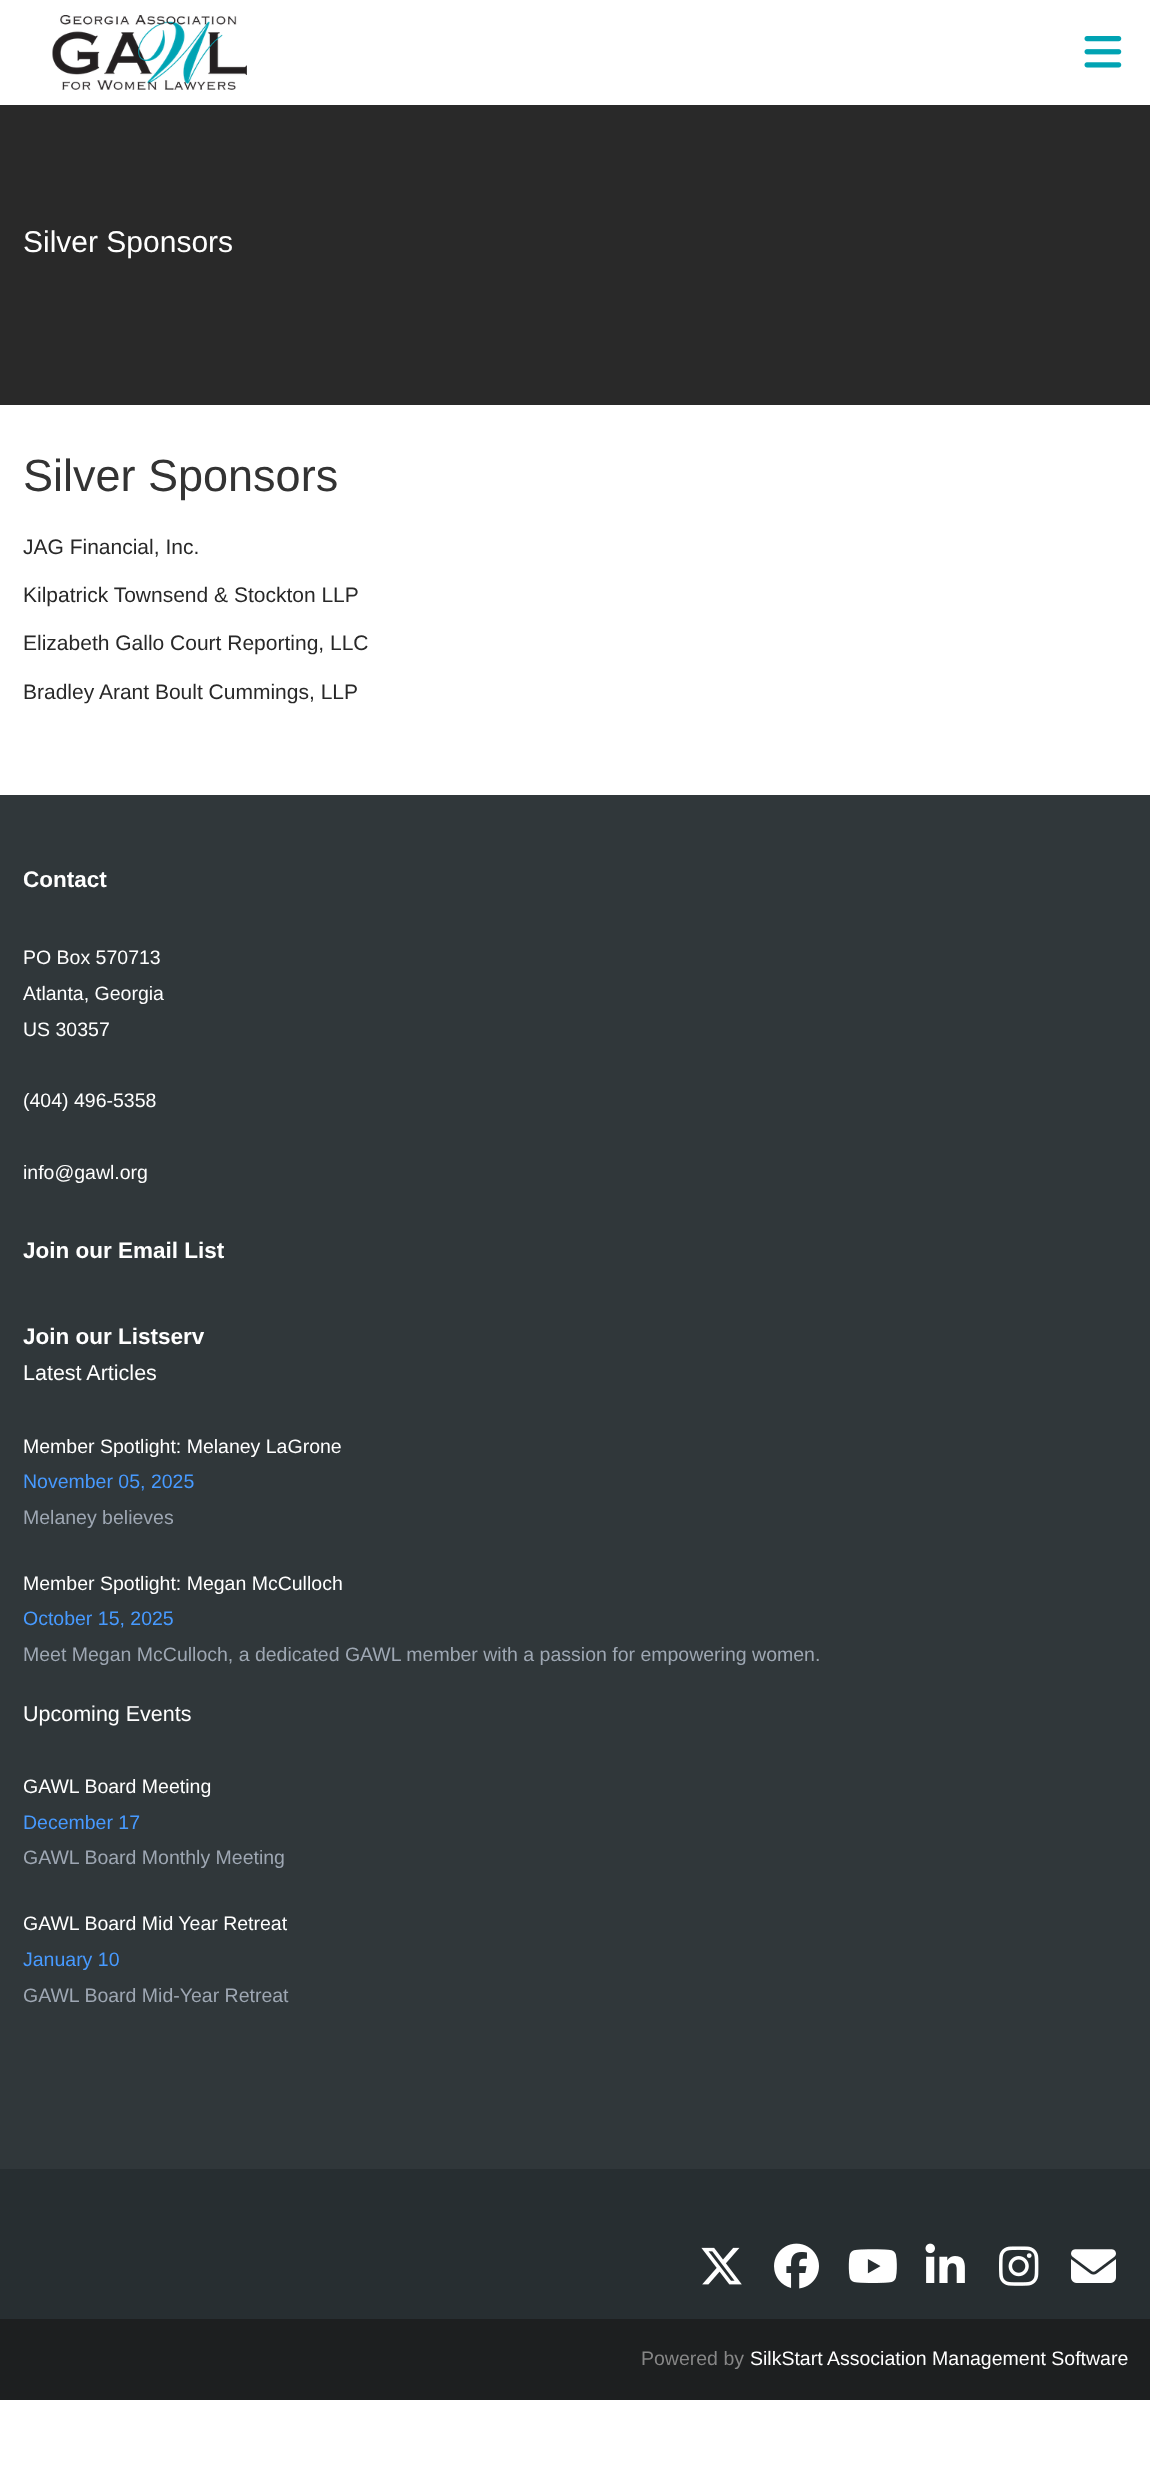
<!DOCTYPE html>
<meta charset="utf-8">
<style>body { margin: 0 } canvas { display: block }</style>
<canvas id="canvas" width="1150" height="2485"></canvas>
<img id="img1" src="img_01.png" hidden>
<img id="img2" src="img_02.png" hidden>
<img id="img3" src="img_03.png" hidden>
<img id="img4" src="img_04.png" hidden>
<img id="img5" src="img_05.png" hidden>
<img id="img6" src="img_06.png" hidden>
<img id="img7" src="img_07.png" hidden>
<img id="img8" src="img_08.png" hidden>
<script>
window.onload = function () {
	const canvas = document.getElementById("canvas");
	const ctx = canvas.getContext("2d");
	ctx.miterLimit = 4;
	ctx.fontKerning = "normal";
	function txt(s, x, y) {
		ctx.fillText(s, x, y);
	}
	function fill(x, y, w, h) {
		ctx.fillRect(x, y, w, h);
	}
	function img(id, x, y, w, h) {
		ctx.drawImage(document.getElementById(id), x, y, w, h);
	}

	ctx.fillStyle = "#FFFFFF";
	fill(0, 0, 1150, 2485);
	img("img1", 52, 15, 195, 75);
	img("img2", 1084, 36, 38, 32);
	ctx.fillStyle = "#292929";
	fill(0, 105, 1150, 300);
	ctx.fillStyle = "#30373A";
	fill(0, 795, 1150, 1374);
	ctx.fillStyle = "#272E31";
	fill(0, 2169, 1150, 150);
	img("img3", 701, 2247, 41, 38);
	img("img4", 774, 2243, 45, 46);
	img("img5", 848, 2249, 49, 34);
	img("img6", 925, 2243, 40, 40);
	img("img7", 999, 2246, 40, 40);
	img("img8", 1071, 2249, 45, 34);
	ctx.fillStyle = "#1D1F20";
	fill(0, 2319, 1150, 81);
	ctx.font = "30px Liberation Sans";
	ctx.fillStyle = "#FFFFFF";
	txt("Silver Sponsors", 23, 252);
	ctx.font = "45px Liberation Sans";
	ctx.fillStyle = "#333333";
	txt("Silver Sponsors", 23, 491);
	ctx.font = "21px Liberation Sans";
	ctx.fillStyle = "#282828";
	txt("JAG Financial, Inc.", 23, 554);
	txt("Kilpatrick Townsend & Stockton LLP", 23, 602);
	txt("Elizabeth Gallo Court Reporting, LLC", 23, 650);
	txt("Bradley Arant Boult Cummings, LLP", 23, 699);
	ctx.font = "bold 22.5px Liberation Sans";
	ctx.fillStyle = "#FFFFFF";
	txt("Contact", 23, 887);
	ctx.font = "19.5px Liberation Sans";
	txt("PO Box 570713", 23, 964);
	txt("Atlanta, Georgia", 23, 1000);
	txt("US 30357", 23, 1036);
	txt("(404) 496-5358", 23, 1107);
	txt("info@gawl.org", 23, 1179);
	ctx.font = "bold 22.5px Liberation Sans";
	txt("Join our Email List", 23, 1258);
	txt("Join our Listserv", 23, 1344);
	ctx.font = "21.5px Liberation Sans";
	txt("Latest Articles", 23, 1380);
	ctx.font = "19.5px Liberation Sans";
	txt("Member Spotlight: Melaney LaGrone", 23, 1453);
	ctx.fillStyle = "#479AFF";
	txt("November 05, 2025", 23, 1488);
	ctx.fillStyle = "#9EA7B3";
	txt("Melaney believes", 23, 1524);
	ctx.fillStyle = "#FFFFFF";
	txt("Member Spotlight: Megan McCulloch", 23, 1590);
	ctx.fillStyle = "#479AFF";
	txt("October 15, 2025", 23, 1625);
	ctx.fillStyle = "#9EA7B3";
	txt("Meet Megan McCulloch, a dedicated GAWL member with a passion for empowering women.", 23, 1661);
	ctx.font = "21.5px Liberation Sans";
	ctx.fillStyle = "#FFFFFF";
	txt("Upcoming Events", 23, 1721);
	ctx.font = "19.5px Liberation Sans";
	txt("GAWL Board Meeting", 23, 1793);
	ctx.fillStyle = "#479AFF";
	txt("December 17", 23, 1829);
	ctx.fillStyle = "#9EA7B3";
	txt("GAWL Board Monthly Meeting", 23, 1864);
	ctx.fillStyle = "#FFFFFF";
	txt("GAWL Board Mid Year Retreat", 23, 1930);
	ctx.fillStyle = "#479AFF";
	txt("January 10", 23, 1966);
	ctx.fillStyle = "#9EA7B3";
	txt("GAWL Board Mid-Year Retreat", 23, 2002);
	ctx.fillStyle = "#868686";
	txt("Powered by", 641, 2365);
	ctx.fillStyle = "#FFFFFF";
	txt("SilkStart Association Management Software", 750, 2365);
};
</script>
